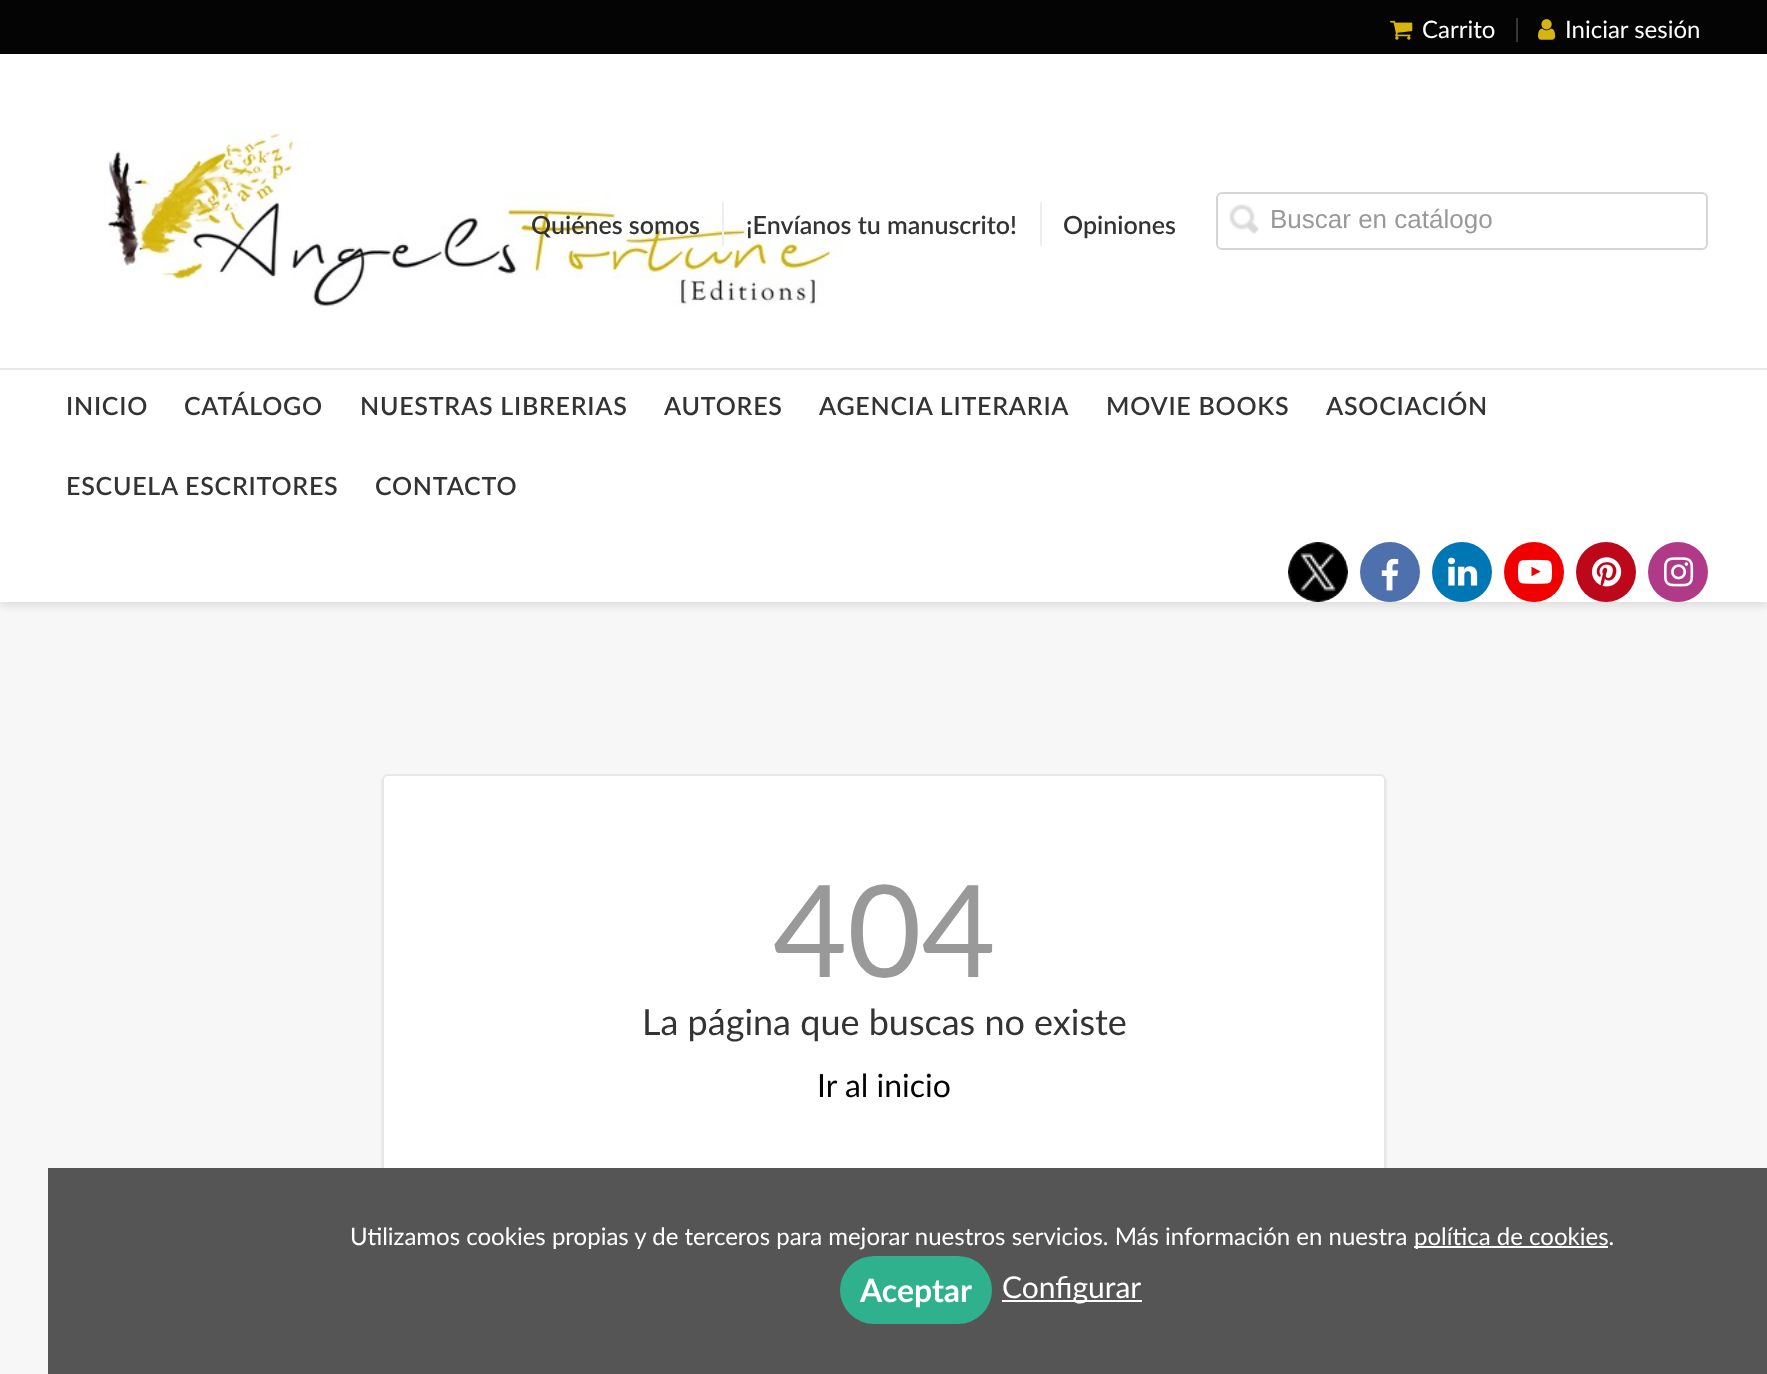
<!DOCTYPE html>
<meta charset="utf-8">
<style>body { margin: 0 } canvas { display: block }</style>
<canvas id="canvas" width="1767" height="1374"></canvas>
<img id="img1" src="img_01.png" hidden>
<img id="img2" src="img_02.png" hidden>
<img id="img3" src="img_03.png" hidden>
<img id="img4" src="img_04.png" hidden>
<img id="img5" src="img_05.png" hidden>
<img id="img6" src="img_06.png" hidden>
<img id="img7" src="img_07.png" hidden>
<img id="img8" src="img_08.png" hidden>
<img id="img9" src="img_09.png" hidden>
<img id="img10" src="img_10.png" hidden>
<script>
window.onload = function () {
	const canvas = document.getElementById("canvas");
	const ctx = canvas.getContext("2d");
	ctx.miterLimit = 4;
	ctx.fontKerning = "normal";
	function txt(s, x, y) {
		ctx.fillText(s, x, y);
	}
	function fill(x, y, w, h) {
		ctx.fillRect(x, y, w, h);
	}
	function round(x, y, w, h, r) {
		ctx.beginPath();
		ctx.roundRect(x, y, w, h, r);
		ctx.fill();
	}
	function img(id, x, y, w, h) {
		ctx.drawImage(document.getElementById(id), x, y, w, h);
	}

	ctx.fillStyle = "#F7F7F7";
	fill(0, 0, 1767, 1374);
	ctx.fillStyle = "rgba(0, 0, 0, 0.1)";
	ctx.filter = "blur(4px)";
	ctx.beginPath();
	ctx.rect(0, 4, 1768, 602);
	ctx.fill();
	ctx.filter = "none";
	ctx.fillStyle = "#FFFFFF";
	fill(0, 54, 1767, 548);
	ctx.fillStyle = "#040404";
	fill(0, 0, 1767, 54);
	img("img1", 1390, 20, 23, 20);
	ctx.fillStyle = "#363636";
	fill(1516, 18, 2, 24);
	img("img2", 1538, 19, 18, 21);
	img("img3", 104, 129, 741, 179);
	ctx.fillStyle = "#EEEEEE";
	fill(722, 202, 2, 44);
	fill(1040, 202, 2, 44);
	img("img4", 1229, 204, 30, 30);
	ctx.beginPath();
	ctx.roundRect(1217, 193, 490, 56, 5);
	ctx.strokeStyle = "#D5D5D5";
	ctx.lineWidth = 2;
	ctx.stroke();
	ctx.fillStyle = "#E8E8E8";
	fill(0, 368, 1767, 2);
	img("img5", 1288, 542, 60, 60);
	ctx.fillStyle = "#4E71AE";
	ctx.beginPath();
	ctx.arc(1390, 572, 30, 0, Math.PI * 2);
	ctx.fill();
	img("img6", 1381, 558, 18, 33);
	ctx.fillStyle = "#0077B5";
	ctx.beginPath();
	ctx.arc(1462, 572, 30, 0, Math.PI * 2);
	ctx.fill();
	img("img7", 1448, 557, 30, 29);
	ctx.fillStyle = "#F00000";
	ctx.beginPath();
	ctx.arc(1534, 572, 30, 0, Math.PI * 2);
	ctx.fill();
	img("img8", 1518, 559, 34, 25);
	ctx.fillStyle = "#BD081C";
	ctx.beginPath();
	ctx.arc(1606, 572, 30, 0, Math.PI * 2);
	ctx.fill();
	img("img9", 1592, 557, 30, 30);
	ctx.fillStyle = "#B03A88";
	ctx.beginPath();
	ctx.arc(1678, 572, 30, 0, Math.PI * 2);
	ctx.fill();
	img("img10", 1664, 557, 30, 30);
	ctx.fillStyle = "rgba(0, 0, 0, 0.1)";
	ctx.filter = "blur(1px)";
	ctx.beginPath();
	ctx.roundRect(382, 776, 1004, 440, 6);
	ctx.fill();
	ctx.filter = "none";
	ctx.fillStyle = "#FFFFFF";
	ctx.beginPath();
	ctx.roundRect(383, 775, 1002, 438, 5);
	ctx.fill();
	ctx.strokeStyle = "#E8E8E8";
	ctx.stroke();
	ctx.fillStyle = "#555555";
	fill(48, 1168, 1719, 206);
	ctx.fillStyle = "#FFFFFF";
	fill(1414, 1246, 194, 2);
	ctx.fillStyle = "#2FB18D";
	round(840, 1256, 152, 68, 34);
	ctx.fillStyle = "#FFFFFF";
	fill(1002, 1300, 140, 2);
	ctx.font = "24px Lato";
	txt("Carrito", 1422, 38);
	txt("Iniciar sesión", 1565, 38);
	ctx.font = "600 25px Lato";
	ctx.fillStyle = "#333333";
	txt("Quiénes somos", 531, 234);
	txt("¡Envíanos tu manuscrito!", 746, 234);
	txt("Opiniones", 1063, 234);
	ctx.font = "26px Liberation Sans";
	ctx.fillStyle = "#999999";
	txt("Buscar en catálogo", 1270, 228);
	ctx.letterSpacing = "0.75px";
	ctx.font = "600 25px Lato";
	ctx.fillStyle = "#333333";
	txt("INICIO", 66, 415);
	txt("CATÁLOGO", 184, 415);
	txt("NUESTRAS LIBRERIAS", 360, 415);
	txt("AUTORES", 664, 415);
	txt("AGENCIA LITERARIA", 819, 415);
	txt("MOVIE BOOKS", 1106, 415);
	txt("ASOCIACIÓN", 1326, 415);
	txt("ESCUELA ESCRITORES", 66, 495);
	txt("CONTACTO", 375, 495);
	ctx.letterSpacing = "0px";
	ctx.font = "128px Lato";
	ctx.fillStyle = "#999999";
	txt("404", 773, 977);
	ctx.font = "36px Lato";
	ctx.fillStyle = "#333333";
	txt("La página que buscas no existe", 642, 1035);
	ctx.font = "32px Lato";
	ctx.fillStyle = "#040404";
	txt("Ir al inicio", 817, 1097);
	ctx.font = "24px Lato";
	ctx.fillStyle = "#FFFFFF";
	txt("Utilizamos cookies propias y de terceros para mejorar nuestros servicios. Más información en nuestra", 350, 1245);
	txt("política de cookies.", 1414, 1245);
	ctx.font = "bold 32px Lato";
	txt("Aceptar", 860, 1302);
	ctx.font = "30px Lato";
	txt("Configurar", 1002, 1298);
};
</script>
